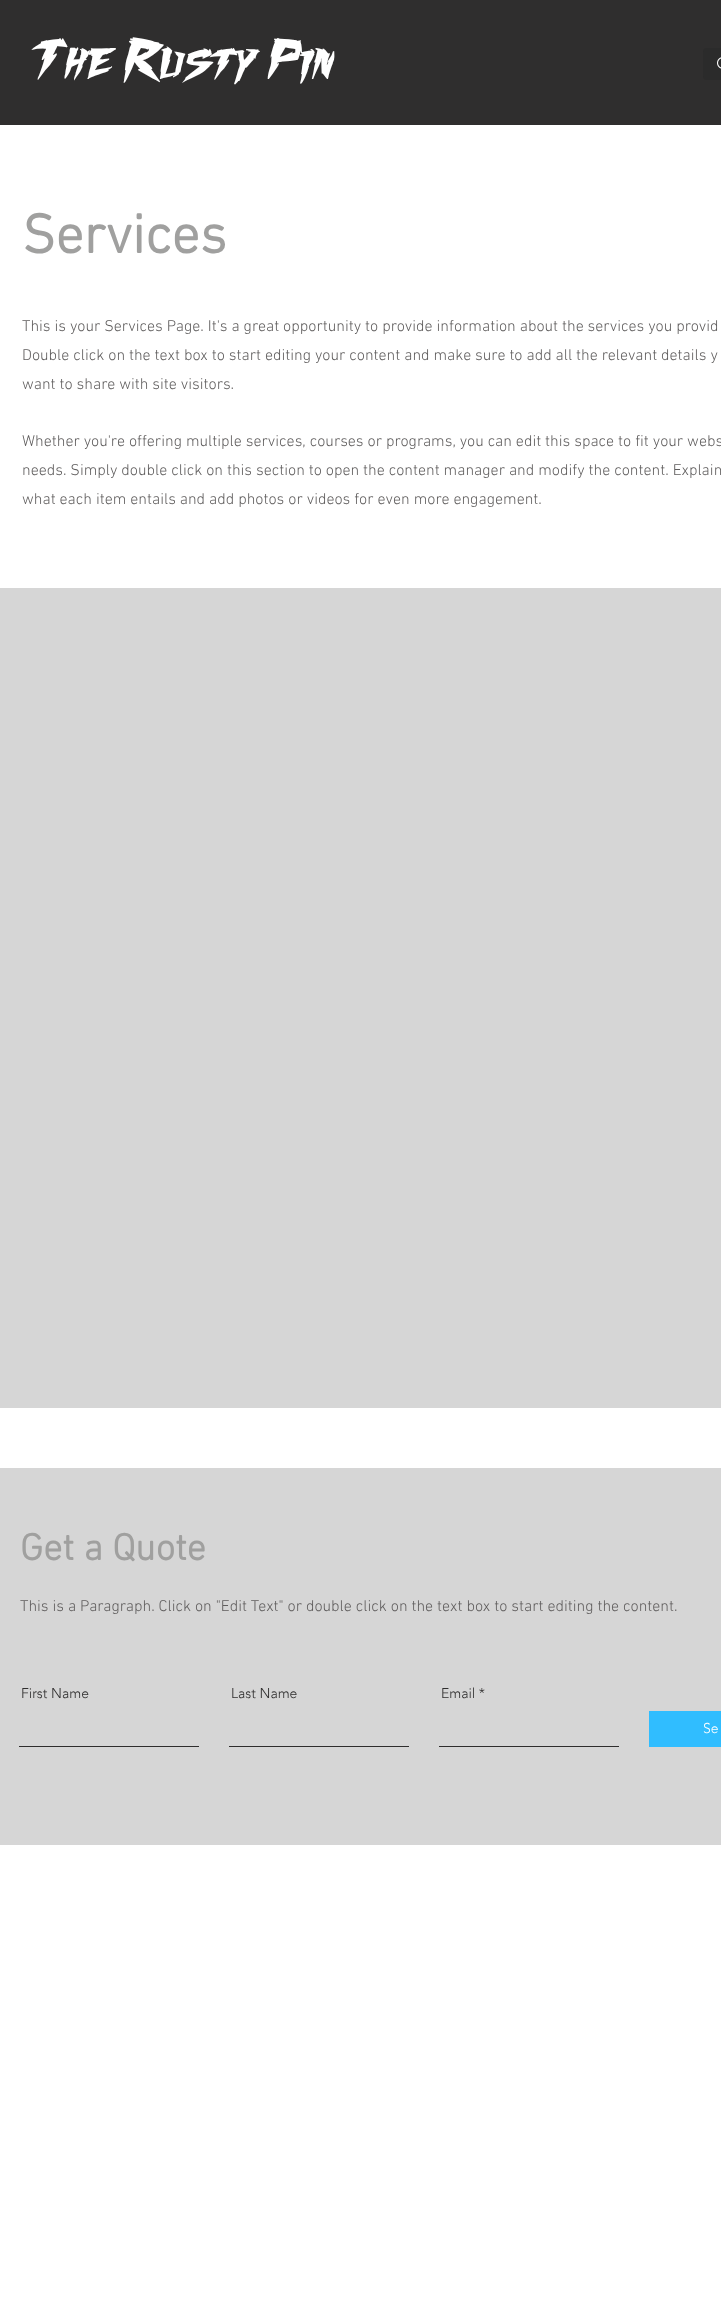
<!DOCTYPE html>
<meta charset="utf-8">
<style>body { margin: 0 } canvas { display: block }</style>
<canvas id="canvas" width="721" height="2298"></canvas>
<img id="img1" src="img_01.png" hidden>
<script>
window.onload = function () {
	const canvas = document.getElementById("canvas");
	const ctx = canvas.getContext("2d");
	ctx.miterLimit = 4;
	ctx.fontKerning = "normal";
	function txt(s, x, y) {
		ctx.fillText(s, x, y);
	}
	function fill(x, y, w, h) {
		ctx.fillRect(x, y, w, h);
	}
	function round(x, y, w, h, r) {
		ctx.beginPath();
		ctx.roundRect(x, y, w, h, r);
		ctx.fill();
	}
	function img(id, x, y, w, h) {
		ctx.drawImage(document.getElementById(id), x, y, w, h);
	}

	ctx.fillStyle = "#FFFFFF";
	fill(0, 0, 721, 2298);
	ctx.fillStyle = "#2F2E2E";
	fill(0, 0, 721, 125);
	ctx.fillStyle = "#2B2B2B";
	round(703, 48, 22, 32, 4);
	img("img1", 717, 57, 4, 12);
	ctx.fillStyle = "#D6D6D6";
	fill(0, 588, 721, 820);
	fill(0, 1468, 721, 377);
	ctx.fillStyle = "#2F2E2E";
	fill(19, 1746, 180, 1);
	fill(229, 1746, 180, 1);
	fill(439, 1746, 180, 1);
	ctx.fillStyle = "#30BDFF";
	fill(649, 1711, 72, 36);
	ctx.font = "bold 44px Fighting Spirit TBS";
	ctx.fillStyle = "#FFFFFF";
	txt("The Rusty Pin", 32, 79);
	ctx.font = "bold 56px 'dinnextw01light'";
	ctx.fillStyle = "#A0A09F";
	txt("Services", 22, 253);
	ctx.font = "300 16px 'dinnextw01light'";
	ctx.fillStyle = "#605E5E";
	txt("This is your Services Page. It's a great opportunity to provide information about the services you provid", 22, 331);
	txt("Double click on the text box to start editing your content and make sure to add all the relevant details y", 22, 360);
	txt("want to share with site visitors.", 22, 389);
	txt("Whether you're offering multiple services, courses or programs, you can edit this space to fit your webs", 22, 446);
	txt("needs. Simply double click on this section to open the content manager and modify the content. Explain", 22, 475);
	txt("what each item entails and add photos or videos for even more engagement.", 22, 504);
	ctx.font = "bold 38px 'dinnextw01light'";
	ctx.fillStyle = "#A0A09F";
	txt("Get a Quote", 20, 1560);
	ctx.font = "300 16px 'dinnextw01light'";
	ctx.fillStyle = "#605E5E";
	txt("This is a Paragraph. Click on \"Edit Text\" or double click on the text box to start editing the content.", 20, 1611);
	ctx.font = "300 14px 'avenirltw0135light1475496'";
	ctx.fillStyle = "#2F2E2E";
	txt("First Name", 21, 1698);
	txt("Last Name", 231, 1698);
	txt("Email *", 441, 1698);
	ctx.fillStyle = "#FFFFFF";
	txt("Se", 703, 1733);
};
</script>
